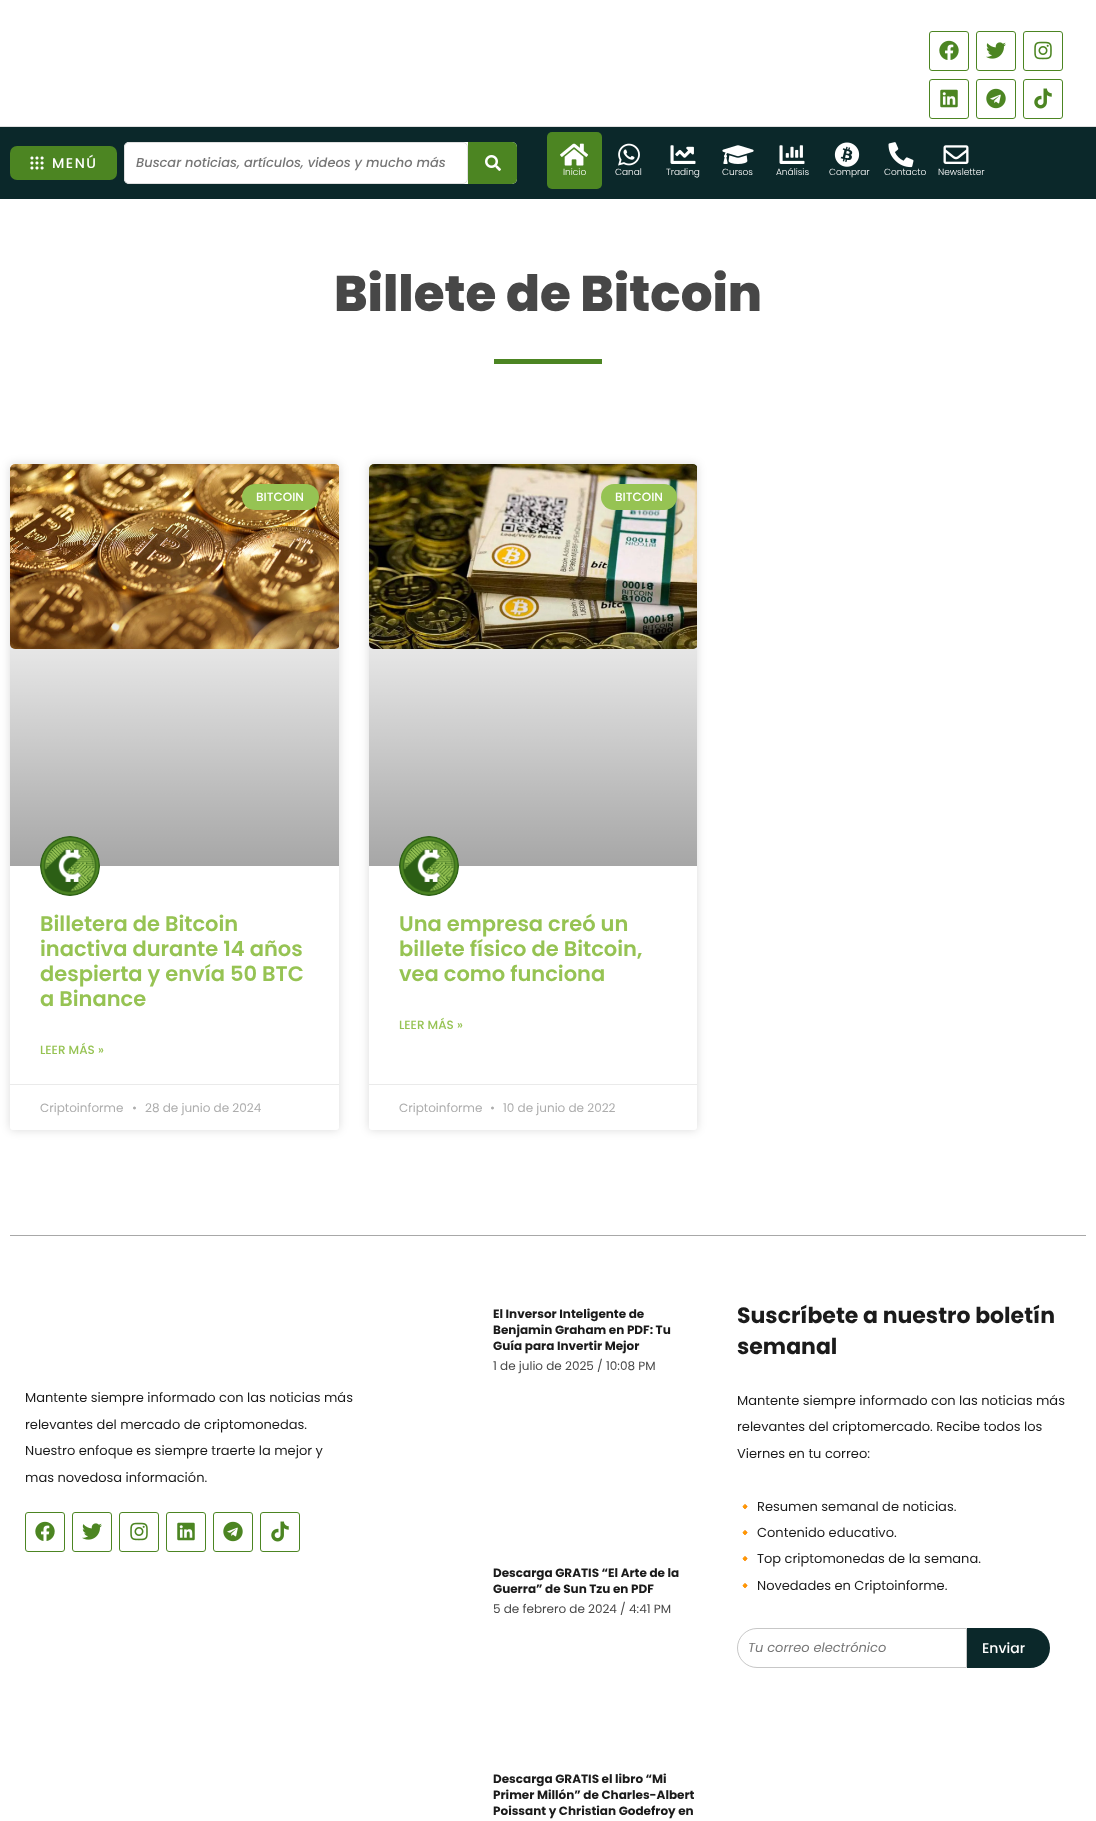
<!DOCTYPE html>
<meta charset="utf-8">
<style>body { margin: 0 } canvas { display: block }</style>
<canvas id="canvas" width="1096" height="1821"></canvas>
<img id="img1" src="img_01.png" hidden>
<img id="img2" src="img_02.png" hidden>
<img id="img3" src="img_03.png" hidden>
<img id="img4" src="img_04.png" hidden>
<img id="img5" src="img_05.png" hidden>
<img id="img6" src="img_06.png" hidden>
<img id="img7" src="img_07.png" hidden>
<img id="img8" src="img_08.png" hidden>
<img id="img9" src="img_09.png" hidden>
<img id="img10" src="img_10.png" hidden>
<img id="img11" src="img_11.png" hidden>
<img id="img12" src="img_12.png" hidden>
<img id="img13" src="img_13.png" hidden>
<img id="img14" src="img_14.png" hidden>
<img id="img15" src="img_15.png" hidden>
<img id="img16" src="img_16.png" hidden>
<img id="img17" src="img_17.png" hidden>
<img id="img18" src="img_18.png" hidden>
<img id="img19" src="img_19.png" hidden>
<img id="img20" src="img_20.png" hidden>
<script>
window.onload = function () {
	const canvas = document.getElementById("canvas");
	const ctx = canvas.getContext("2d");
	ctx.miterLimit = 4;
	ctx.fontKerning = "normal";
	function txt(s, x, y) {
		ctx.fillText(s, x, y);
	}
	function fill(x, y, w, h) {
		ctx.fillRect(x, y, w, h);
	}
	function round(x, y, w, h, r) {
		ctx.beginPath();
		ctx.roundRect(x, y, w, h, r);
		ctx.fill();
	}
	function img(id, x, y, w, h) {
		ctx.drawImage(document.getElementById(id), x, y, w, h);
	}
	let gradient;

	ctx.fillStyle = "#FFFFFF";
	fill(0, 0, 1096, 1821);
	ctx.beginPath();
	ctx.roundRect(929.5, 31.5, 39, 39, 2.5);
	ctx.strokeStyle = "#4C8522";
	ctx.stroke();
	img("img1", 939, 40, 20, 20);
	ctx.beginPath();
	ctx.roundRect(976.5, 31.5, 39, 39, 2.5);
	ctx.stroke();
	img("img2", 986, 42, 20, 17);
	ctx.beginPath();
	ctx.roundRect(1023.5, 31.5, 39, 39, 2.5);
	ctx.stroke();
	img("img3", 1034, 41, 18, 19);
	ctx.beginPath();
	ctx.roundRect(929.5, 79.5, 39, 39, 2.5);
	ctx.stroke();
	img("img4", 940, 89, 18, 19);
	ctx.beginPath();
	ctx.roundRect(976.5, 79.5, 39, 39, 2.5);
	ctx.stroke();
	img("img5", 986, 88, 20, 21);
	ctx.beginPath();
	ctx.roundRect(1023.5, 79.5, 39, 39, 2.5);
	ctx.stroke();
	img("img6", 1034, 88, 18, 21);
	ctx.fillStyle = "#0B282A";
	fill(0, 127, 1096, 72);
	ctx.fillStyle = "#E0E0E0";
	fill(0, 126, 1096, 1);
	ctx.fillStyle = "#4C8522";
	round(10, 146, 107, 34, 7);
	img("img7", 30, 156, 14, 14);
	ctx.fillStyle = "#FFFFFF";
	round(124, 142, 393, 42, 5);
	ctx.beginPath();
	ctx.roundRect(124.5, 142.5, 343, 41, 4.5);
	ctx.strokeStyle = "#E0E0E0";
	ctx.stroke();
	ctx.fillStyle = "#4C8522";
	ctx.beginPath();
	ctx.roundRect(468, 142, 49, 42, [0, 5, 5, 0]);
	ctx.fill();
	img("img8", 485, 155, 16, 16);
	round(547, 132, 55, 57, 5);
	img("img9", 560, 143, 29, 23);
	img("img10", 618, 143, 22, 23);
	img("img11", 670, 145, 26, 19);
	img("img12", 722, 145, 32, 19);
	img("img13", 779, 145, 26, 19);
	img("img14", 834, 142, 26, 25);
	img("img15", 888, 142, 26, 26);
	img("img16", 943, 145, 26, 19);
	fill(494, 359, 108, 5);
	ctx.fillStyle = "rgba(0, 0, 0, 0.15)";
	ctx.filter = "blur(5px)";
	ctx.beginPath();
	ctx.roundRect(10, 464, 329, 666, 3);
	ctx.fill();
	ctx.filter = "none";
	ctx.fillStyle = "#FFFFFF";
	round(10, 464, 329, 666, 3);
	img("img17", 10, 464, 329, 185);
	gradient = ctx.createLinearGradient(175, 866, 175, 464);
	gradient.addColorStop(0, "rgba(0, 0, 0, 0.35)");
	gradient.addColorStop(0.75, "rgba(0, 0, 0, 0)");
	ctx.fillStyle = gradient;
	fill(10, 583, 329, 283);
	ctx.fillStyle = "#96C353";
	round(242, 484, 77, 26, 13);
	img("img18", 40, 836, 60, 60);
	ctx.fillStyle = "#EAEAEA";
	fill(10, 1084, 329, 1);
	ctx.fillStyle = "rgba(0, 0, 0, 0.15)";
	ctx.filter = "blur(5px)";
	ctx.beginPath();
	ctx.roundRect(369, 464, 328, 666, 3);
	ctx.fill();
	ctx.filter = "none";
	ctx.fillStyle = "#FFFFFF";
	round(369, 464, 328, 666, 3);
	img("img19", 369, 464, 328, 185);
	gradient = ctx.createLinearGradient(533, 866, 533, 464);
	gradient.addColorStop(0, "rgba(0, 0, 0, 0.35)");
	gradient.addColorStop(0.75, "rgba(0, 0, 0, 0)");
	ctx.fillStyle = gradient;
	fill(369, 583, 328, 283);
	ctx.fillStyle = "#96C353";
	round(601, 484, 76, 26, 13);
	img("img20", 399, 836, 60, 60);
	ctx.fillStyle = "#EAEAEA";
	fill(369, 1084, 328, 1);
	ctx.fillStyle = "#A8A8A8";
	fill(10, 1235, 1076, 1);
	ctx.beginPath();
	ctx.roundRect(25.5, 1512.5, 39, 39, 2.5);
	ctx.strokeStyle = "#4C8522";
	ctx.stroke();
	img("img1", 35, 1521, 20, 20);
	ctx.beginPath();
	ctx.roundRect(72.5, 1512.5, 39, 39, 2.5);
	ctx.stroke();
	img("img2", 82, 1523, 20, 17);
	ctx.beginPath();
	ctx.roundRect(119.5, 1512.5, 39, 39, 2.5);
	ctx.stroke();
	img("img3", 130, 1522, 18, 19);
	ctx.beginPath();
	ctx.roundRect(166.5, 1512.5, 39, 39, 2.5);
	ctx.stroke();
	img("img4", 177, 1522, 18, 19);
	ctx.beginPath();
	ctx.roundRect(213.5, 1512.5, 39, 39, 2.5);
	ctx.stroke();
	img("img5", 223, 1521, 20, 21);
	ctx.beginPath();
	ctx.roundRect(260.5, 1512.5, 39, 39, 2.5);
	ctx.stroke();
	img("img6", 271, 1521, 18, 21);
	ctx.beginPath();
	ctx.roundRect(737.5, 1628.5, 229, 39, [19.5, 0, 0, 19.5]);
	ctx.strokeStyle = "#C7C7C7";
	ctx.stroke();
	ctx.fillStyle = "#0B282A";
	ctx.beginPath();
	ctx.roundRect(967, 1628, 83, 40, [0, 20, 20, 0]);
	ctx.fill();
	ctx.letterSpacing = "1.5px";
	ctx.font = "500 14px Poppins";
	ctx.fillStyle = "#FFFFFF";
	txt("MENÚ", 52, 168);
	ctx.letterSpacing = "0px";
	ctx.font = "italic 500 13px Poppins";
	ctx.fillStyle = "#767676";
	txt("Buscar noticias, artículos, videos y mucho más", 136, 167);
	ctx.font = "300 9px Poppins";
	ctx.fillStyle = "#FFFFFF";
	txt("Inicio", 563, 175);
	txt("Canal", 615, 175);
	txt("Trading", 666, 175);
	txt("Cursos", 722, 175);
	txt("Análisis", 776, 175);
	txt("Comprar", 829, 175);
	txt("Contacto", 884, 175);
	txt("Newsletter", 938, 175);
	ctx.font = "800 50px Poppins";
	ctx.fillStyle = "#474747";
	txt("Billete de Bitcoin", 334, 311);
	ctx.font = "500 12px Poppins";
	ctx.fillStyle = "#FFFFFF";
	txt("BITCOIN", 256, 501);
	ctx.font = "600 21px Poppins";
	ctx.fillStyle = "#96C353";
	txt("Billetera de Bitcoin", 40, 931);
	txt("inactiva durante 14 años", 40, 956);
	txt("despierta y envía 50 BTC", 40, 981);
	txt("a Binance", 40, 1006);
	ctx.font = "500 12px Poppins";
	txt("LEER MÁS »", 40, 1054);
	ctx.font = "12px Poppins";
	ctx.fillStyle = "#ADADAD";
	txt("Criptoinforme", 40, 1112);
	txt("•", 132, 1112);
	txt("28 de junio de 2024", 145, 1112);
	ctx.font = "500 12px Poppins";
	ctx.fillStyle = "#FFFFFF";
	txt("BITCOIN", 615, 501);
	ctx.font = "600 21px Poppins";
	ctx.fillStyle = "#96C353";
	txt("Una empresa creó un", 399, 931);
	txt("billete físico de Bitcoin,", 399, 956);
	txt("vea como funciona", 399, 981);
	ctx.font = "500 12px Poppins";
	txt("LEER MÁS »", 399, 1029);
	ctx.font = "12px Poppins";
	ctx.fillStyle = "#ADADAD";
	txt("Criptoinforme", 399, 1112);
	txt("•", 490, 1112);
	txt("10 de junio de 2022", 503, 1112);
	ctx.font = "13px Poppins";
	ctx.fillStyle = "#1B1B1B";
	txt("Mantente siempre informado con las noticias más", 25, 1402);
	txt("relevantes del mercado de criptomonedas.", 25, 1429);
	txt("Nuestro enfoque es siempre traerte la mejor y", 25, 1455);
	txt("mas novedosa información.", 25, 1482);
	ctx.font = "bold 12px Poppins";
	txt("El Inversor Inteligente de", 493, 1318);
	txt("Benjamin Graham en PDF: Tu", 493, 1334);
	txt("Guía para Invertir Mejor", 493, 1350);
	ctx.font = "12px Poppins";
	ctx.fillStyle = "#474747";
	txt("1 de julio de 2025 / 10:08 PM", 493, 1370);
	ctx.font = "bold 12px Poppins";
	ctx.fillStyle = "#1B1B1B";
	txt("Descarga GRATIS “El Arte de la", 493, 1577);
	txt("Guerra” de Sun Tzu en PDF", 493, 1593);
	ctx.font = "12px Poppins";
	ctx.fillStyle = "#474747";
	txt("5 de febrero de 2024 / 4:41 PM", 493, 1613);
	ctx.font = "bold 12px Poppins";
	ctx.fillStyle = "#1B1B1B";
	txt("Descarga GRATIS el libro “Mi", 493, 1783);
	txt("Primer Millón” de Charles-Albert", 493, 1799);
	txt("Poissant y Christian Godefroy en", 493, 1815);
	ctx.font = "bold 22px Poppins";
	txt("Suscríbete a nuestro boletín", 737, 1323);
	txt("semanal", 737, 1354);
	ctx.font = "13px Poppins";
	txt("Mantente siempre informado con las noticias más", 737, 1405);
	txt("relevantes del criptomercado. Recibe todos los", 737, 1431);
	txt("Viernes en tu correo:", 737, 1458);
	ctx.font = "13px Noto Color Emoji";
	txt("🔸", 737, 1511);
	ctx.font = "13px Poppins";
	txt("Resumen semanal de noticias.", 757, 1511);
	ctx.font = "13px Noto Color Emoji";
	txt("🔸", 737, 1537);
	ctx.font = "13px Poppins";
	txt("Contenido educativo.", 757, 1537);
	ctx.font = "13px Noto Color Emoji";
	txt("🔸", 737, 1563);
	ctx.font = "13px Poppins";
	txt("Top criptomonedas de la semana.", 757, 1563);
	ctx.font = "13px Noto Color Emoji";
	txt("🔸", 737, 1590);
	ctx.font = "13px Poppins";
	txt("Novedades en Criptoinforme.", 757, 1590);
	ctx.font = "italic 13px Poppins";
	ctx.fillStyle = "#767676";
	txt("Tu correo electrónico", 748, 1652);
	ctx.font = "500 14px Poppins";
	ctx.fillStyle = "#FFFFFF";
	txt("Enviar", 982, 1653);
};
</script>
